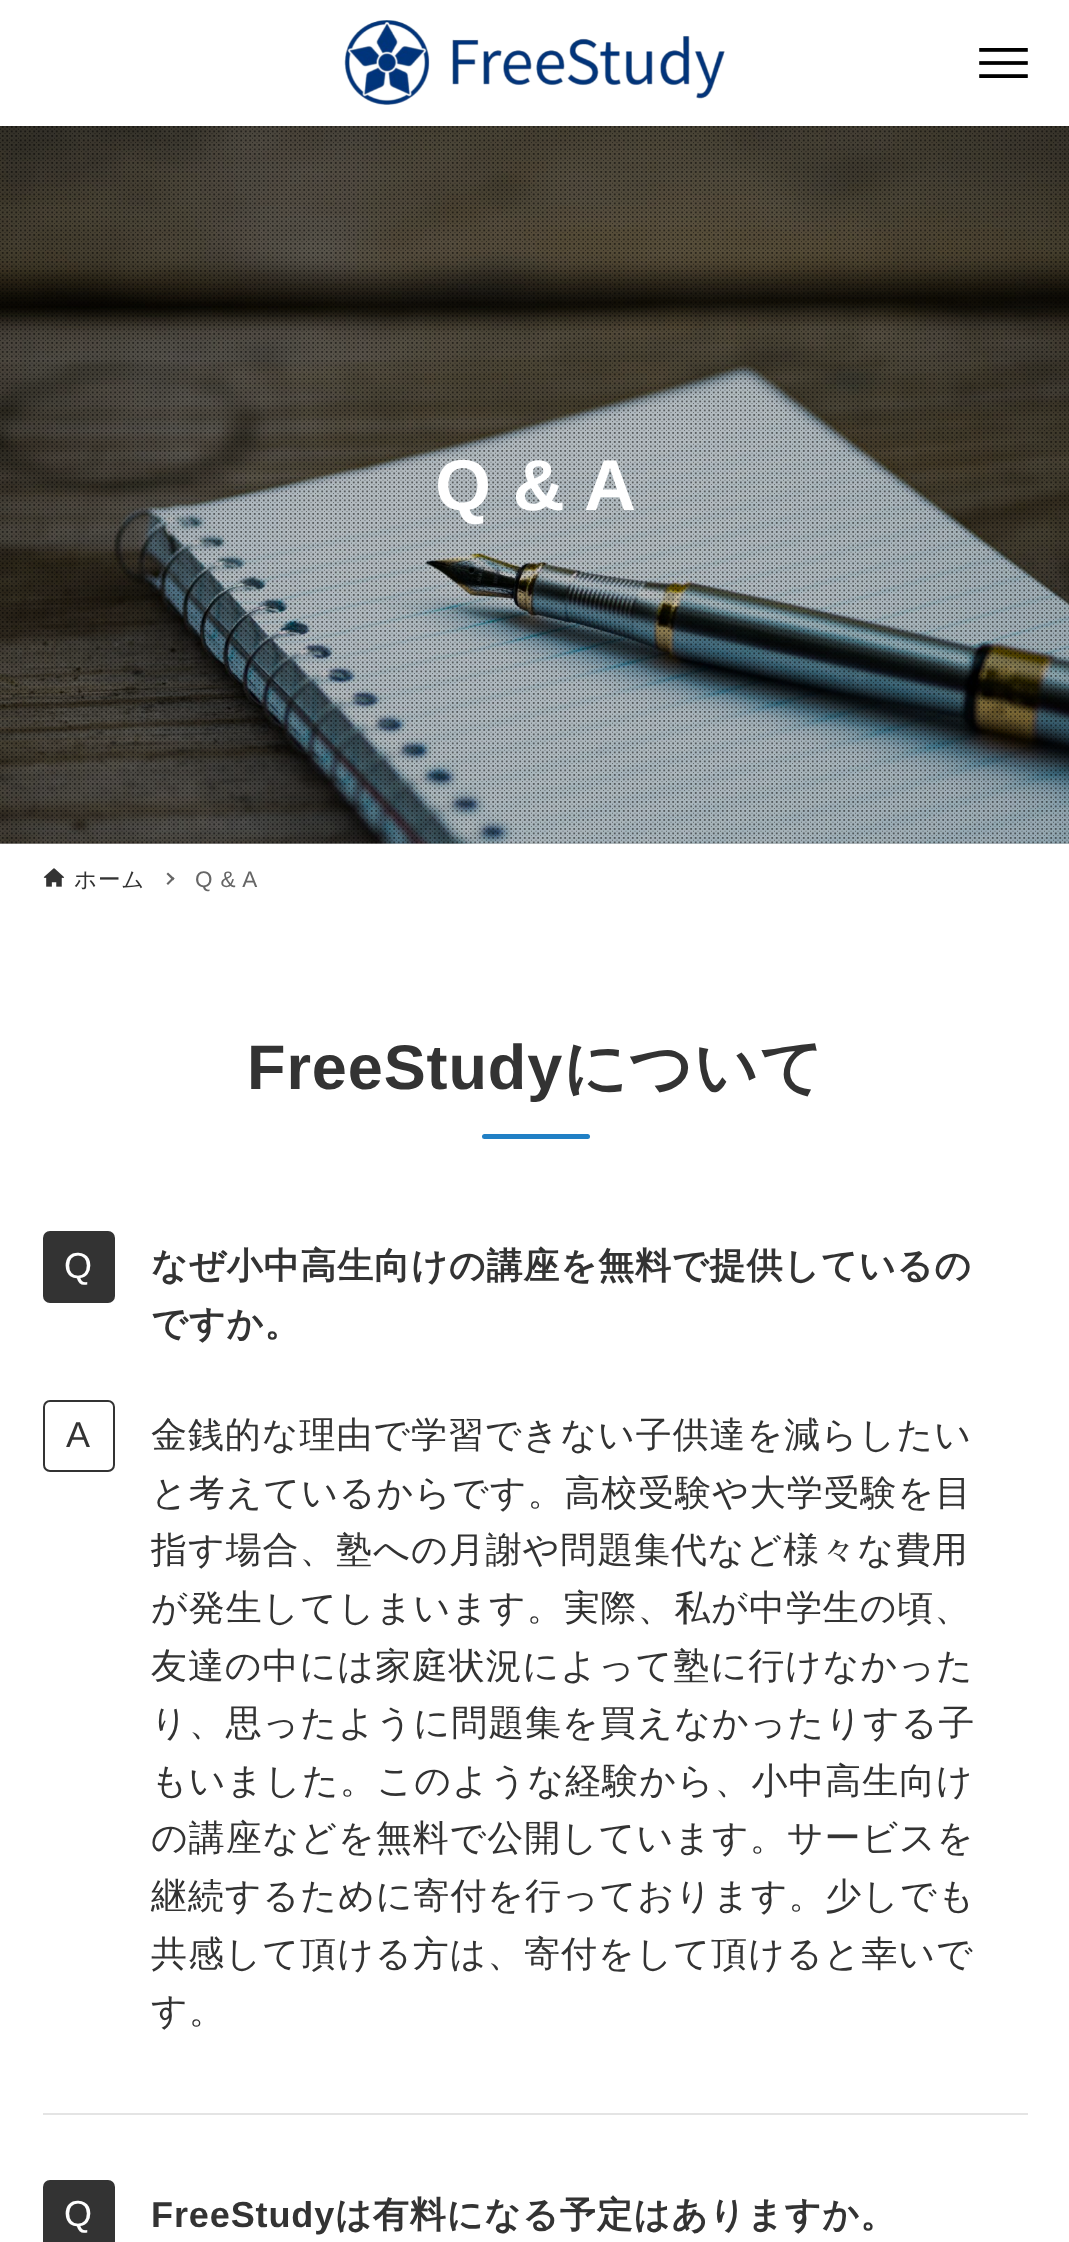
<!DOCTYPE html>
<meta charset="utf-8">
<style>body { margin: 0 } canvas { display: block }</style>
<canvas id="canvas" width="1069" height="2242"></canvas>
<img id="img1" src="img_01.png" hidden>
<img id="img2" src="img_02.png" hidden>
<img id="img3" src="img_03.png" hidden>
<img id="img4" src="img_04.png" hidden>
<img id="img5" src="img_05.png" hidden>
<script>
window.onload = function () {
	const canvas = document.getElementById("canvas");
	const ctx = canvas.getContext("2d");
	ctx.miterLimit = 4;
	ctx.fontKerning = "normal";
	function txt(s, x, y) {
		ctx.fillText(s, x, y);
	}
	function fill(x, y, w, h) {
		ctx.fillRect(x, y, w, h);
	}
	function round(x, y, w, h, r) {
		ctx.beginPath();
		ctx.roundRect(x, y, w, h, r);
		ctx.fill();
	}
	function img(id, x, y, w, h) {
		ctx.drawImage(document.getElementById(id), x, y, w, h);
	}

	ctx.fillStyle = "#FFFFFF";
	fill(0, 0, 1069, 2242);
	ctx.fillStyle = "#C2C2C2";
	fill(0, 843, 1069, 1);
	img("img1", 344, 20, 381, 85);
	img("img2", 979, 48, 49, 30);
	img("img3", 0, 126, 1069, 718);
	img("img4", 0, 126, 1069, 718);
	img("img5", 43, 868, 22, 19);
	ctx.fillStyle = "#666666";
	ctx.beginPath();
	ctx.moveTo(168, 872.5);
	ctx.lineTo(174.5, 878.5);
	ctx.lineTo(173, 880.5);
	ctx.lineTo(166.5, 874);
	ctx.closePath();
	ctx.fill();
	ctx.beginPath();
	ctx.moveTo(173, 877);
	ctx.lineTo(174.5, 878.5);
	ctx.lineTo(168, 885);
	ctx.lineTo(166.5, 883.5);
	ctx.closePath();
	ctx.fill();
	ctx.fillStyle = "#2180C5";
	round(482, 1134, 108, 5, 2.5);
	ctx.fillStyle = "#333333";
	round(43, 1231, 72, 72, 7);
	ctx.beginPath();
	ctx.roundRect(44, 1401, 70, 70, 6);
	ctx.strokeStyle = "#333333";
	ctx.lineWidth = 2;
	ctx.stroke();
	ctx.fillStyle = "#E4E4E4";
	fill(43, 2113, 985, 2);
	ctx.fillStyle = "#333333";
	round(43, 2180, 72, 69, 7);
	ctx.letterSpacing = "0.9px";
	ctx.font = "bold 72px Liberation Sans";
	ctx.fillStyle = "#FFFFFF";
	txt("Q & A", 435, 510);
	ctx.font = "500 22.5px WenQuanYi Zen Hei";
	ctx.fillStyle = "#333333";
	txt("ホーム", 74, 887);
	ctx.font = "22.5px Liberation Sans";
	ctx.fillStyle = "#666666";
	txt("Q & A", 195, 887);
	ctx.font = "bold 63px Liberation Sans";
	ctx.fillStyle = "#333333";
	txt("FreeStudy", 247, 1089);
	ctx.font = "bold 63px WenQuanYi Zen Hei";
	txt("について", 563, 1089);
	ctx.font = "36px Liberation Sans";
	ctx.fillStyle = "#FFFFFF";
	txt("Q", 64, 1278);
	ctx.font = "bold 36px WenQuanYi Zen Hei";
	ctx.fillStyle = "#333333";
	txt("なぜ小中高生向けの講座を無料で提供しているの", 151, 1278);
	txt("ですか。", 151, 1336);
	ctx.font = "36px Liberation Sans";
	txt("A", 66, 1447);
	ctx.font = "500 36px WenQuanYi Zen Hei";
	txt("金銭的な理由で学習できない子供達を減らしたい", 151, 1447);
	txt("と考えているからです。高校受験や大学受験を目", 151, 1505);
	txt("指す場合、塾への月謝や問題集代など様々な費用", 151, 1562);
	txt("が発生してしまいます。実際、私が中学生の頃、", 151, 1620);
	txt("友達の中には家庭状況によって塾に行けなかった", 151, 1678);
	txt("り、思ったように問題集を買えなかったりする子", 151, 1735);
	txt("もいました。このような経験から、小中高生向け", 151, 1793);
	txt("の講座などを無料で公開しています。サービスを", 151, 1850);
	txt("継続するために寄付を行っております。少しでも", 151, 1908);
	txt("共感して頂ける方は、寄付をして頂けると幸いで", 151, 1966);
	txt("す。", 151, 2023);
	ctx.font = "36px Liberation Sans";
	ctx.fillStyle = "#FFFFFF";
	txt("Q", 64, 2226);
	ctx.font = "bold 36px Liberation Sans";
	ctx.fillStyle = "#333333";
	txt("FreeStudy", 151, 2227);
	ctx.font = "bold 36px WenQuanYi Zen Hei";
	txt("は有料になる予定はありますか。", 335, 2227);
};
</script>
